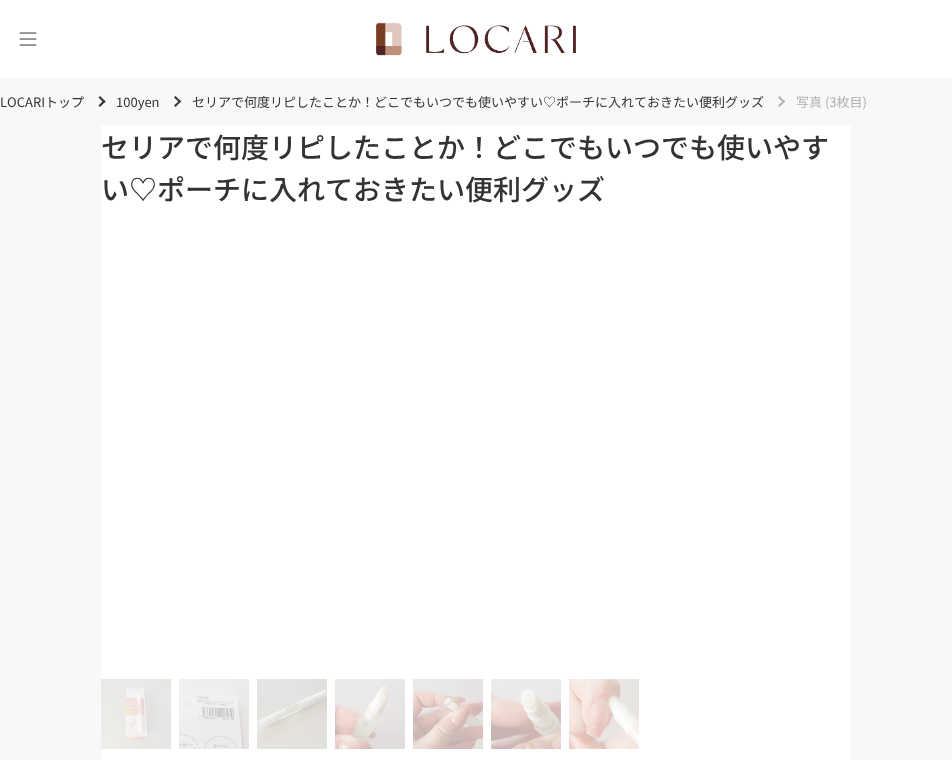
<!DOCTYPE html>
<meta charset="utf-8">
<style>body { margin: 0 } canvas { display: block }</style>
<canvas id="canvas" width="952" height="760"></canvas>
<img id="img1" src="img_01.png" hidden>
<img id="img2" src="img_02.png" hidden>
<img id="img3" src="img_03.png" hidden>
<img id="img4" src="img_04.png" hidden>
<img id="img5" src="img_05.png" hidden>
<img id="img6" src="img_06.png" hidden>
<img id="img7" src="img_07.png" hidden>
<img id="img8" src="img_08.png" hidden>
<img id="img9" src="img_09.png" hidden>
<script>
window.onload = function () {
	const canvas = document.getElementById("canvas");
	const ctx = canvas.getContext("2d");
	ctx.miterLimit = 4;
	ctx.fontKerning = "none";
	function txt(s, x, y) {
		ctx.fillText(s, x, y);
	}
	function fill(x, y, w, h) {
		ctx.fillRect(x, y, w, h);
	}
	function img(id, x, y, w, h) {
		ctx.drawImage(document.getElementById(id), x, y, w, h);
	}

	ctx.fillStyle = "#F8F8F8";
	fill(0, 0, 952, 760);
	ctx.fillStyle = "#FFFFFF";
	fill(0, 0, 952, 78);
	img("img1", 19, 32, 18, 14);
	img("img2", 376, 22, 200, 34);
	ctx.fillStyle = "#333333";
	ctx.beginPath();
	ctx.moveTo(98.5, 97.5);
	ctx.lineTo(100, 96);
	ctx.lineTo(105.5, 101.5);
	ctx.lineTo(104, 103);
	ctx.closePath();
	ctx.fill();
	ctx.beginPath();
	ctx.moveTo(98.5, 105.5);
	ctx.lineTo(104, 100);
	ctx.lineTo(105.5, 101.5);
	ctx.lineTo(100, 107);
	ctx.closePath();
	ctx.fill();
	ctx.beginPath();
	ctx.moveTo(174, 97.5);
	ctx.lineTo(175.5, 96);
	ctx.lineTo(181, 101.5);
	ctx.lineTo(180, 103);
	ctx.closePath();
	ctx.fill();
	ctx.beginPath();
	ctx.moveTo(174, 105.5);
	ctx.lineTo(180, 100);
	ctx.lineTo(181, 101.5);
	ctx.lineTo(175.5, 107);
	ctx.closePath();
	ctx.fill();
	ctx.fillStyle = "#B2B2B2";
	ctx.beginPath();
	ctx.moveTo(778, 97.5);
	ctx.lineTo(779.5, 96);
	ctx.lineTo(785, 101.5);
	ctx.lineTo(784, 103);
	ctx.closePath();
	ctx.fill();
	ctx.beginPath();
	ctx.moveTo(778, 105.5);
	ctx.lineTo(784, 100);
	ctx.lineTo(785, 101.5);
	ctx.lineTo(779.5, 107);
	ctx.closePath();
	ctx.fill();
	ctx.fillStyle = "#FFFFFF";
	fill(101, 125, 750, 635);
	img("img3", 101, 679, 70, 70);
	img("img4", 179, 679, 70, 70);
	img("img5", 257, 679, 70, 70);
	img("img6", 335, 679, 70, 70);
	img("img7", 413, 679, 70, 70);
	img("img8", 491, 679, 70, 70);
	img("img9", 569, 679, 70, 70);
	ctx.font = "13px Noto Sans JP";
	ctx.fillStyle = "#333333";
	txt("LOCARIトップ", 0, 107);
	txt("100yen", 116, 107);
	txt("セリアで何度リピしたことか！どこでもいつでも使いやすい♡ポーチに入れておきたい便利グッズ", 192, 107);
	ctx.fillStyle = "#B2B2B2";
	txt("写真 (3枚目)", 796, 107);
	ctx.font = "500 28px Noto Sans JP";
	ctx.fillStyle = "#333333";
	txt("セリアで何度リピしたことか！どこでもいつでも使いやす", 101, 158);
	txt("い♡ポーチに入れておきたい便利グッズ", 101, 200);
};
</script>
